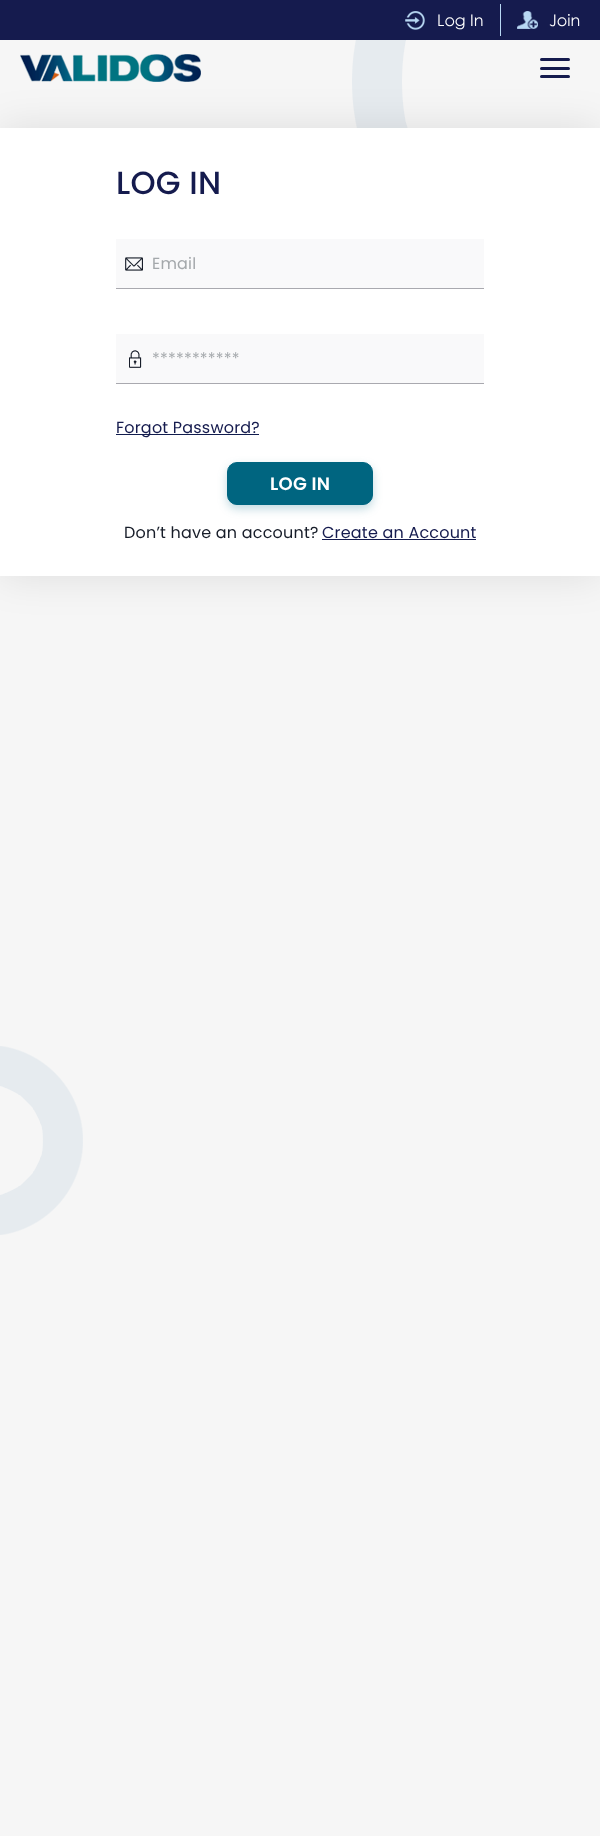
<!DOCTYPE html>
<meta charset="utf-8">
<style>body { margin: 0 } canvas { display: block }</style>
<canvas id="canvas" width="600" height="1836"></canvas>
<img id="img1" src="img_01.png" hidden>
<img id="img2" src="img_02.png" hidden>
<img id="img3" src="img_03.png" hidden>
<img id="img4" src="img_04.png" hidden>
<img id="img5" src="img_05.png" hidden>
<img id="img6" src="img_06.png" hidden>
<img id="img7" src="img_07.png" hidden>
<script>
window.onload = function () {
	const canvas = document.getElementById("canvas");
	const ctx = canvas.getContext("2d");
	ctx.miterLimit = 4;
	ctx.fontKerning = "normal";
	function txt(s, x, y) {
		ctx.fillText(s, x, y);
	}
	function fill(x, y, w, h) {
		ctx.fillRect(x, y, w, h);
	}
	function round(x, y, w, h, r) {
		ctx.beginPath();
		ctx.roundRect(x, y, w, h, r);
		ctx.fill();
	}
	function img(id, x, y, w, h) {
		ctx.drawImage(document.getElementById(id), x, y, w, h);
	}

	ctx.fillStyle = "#F6F6F6";
	fill(0, 0, 600, 1836);
	ctx.fillStyle = "#151B4E";
	fill(0, 0, 600, 40);
	img("img1", 405, 11, 20, 19);
	ctx.fillStyle = "#B8D8F3";
	fill(500, 4, 1, 32);
	img("img2", 517, 11, 21, 18);
	img("img3", 20, 54, 181, 28);
	ctx.fillStyle = "#151B4E";
	round(540, 58, 30, 3, 1.5);
	img("img4", 352, 40, 56, 88);
	ctx.fillStyle = "rgba(0, 0, 0, 0.1)";
	ctx.filter = "blur(20px)";
	ctx.beginPath();
	ctx.rect(0, 128, 600, 448);
	ctx.fill();
	ctx.filter = "none";
	ctx.fillStyle = "#151B4E";
	round(540, 67, 30, 3, 1.5);
	round(540, 75, 30, 3, 1.5);
	ctx.fillStyle = "#FFFFFF";
	fill(0, 128, 600, 448);
	ctx.fillStyle = "#F9F9FA";
	fill(116, 239, 368, 49);
	img("img5", 125, 257, 18, 14);
	ctx.fillStyle = "#A9A9AF";
	fill(116, 288, 368, 1);
	ctx.fillStyle = "#F9F9FA";
	fill(116, 334, 368, 49);
	img("img6", 129, 350, 13, 18);
	ctx.fillStyle = "#A9A9AF";
	fill(116, 383, 368, 1);
	ctx.fillStyle = "#111C4E";
	fill(116, 434, 143, 1);
	ctx.fillStyle = "rgba(0, 101, 128, 0.24)";
	ctx.filter = "blur(5px)";
	ctx.beginPath();
	ctx.roundRect(227, 466, 146, 43, 10);
	ctx.fill();
	ctx.filter = "none";
	ctx.fillStyle = "#006580";
	ctx.beginPath();
	ctx.roundRect(227.5, 462.5, 145, 42, 9.5);
	ctx.fill();
	ctx.strokeStyle = "#006580";
	ctx.stroke();
	ctx.fillStyle = "#151B4E";
	fill(322, 539, 154, 1);
	img("img7", 0, 1046, 83, 189);
	ctx.font = "16px Century Gothic";
	ctx.fillStyle = "#FFFFFF";
	txt("Log In", 437, 26);
	txt("Join", 549, 26);
	ctx.letterSpacing = "0.25px";
	ctx.font = "500 32px Poppins";
	ctx.fillStyle = "#151B4E";
	txt("LOG IN", 116, 194);
	ctx.letterSpacing = "0.2px";
	ctx.font = "16px Poppins";
	ctx.fillStyle = "#A4A8AB";
	txt("Email", 152, 269);
	txt("***********", 152, 364);
	ctx.fillStyle = "#151B4E";
	txt("Forgot Password?", 116, 433);
	ctx.letterSpacing = "0.25px";
	ctx.font = "600 18px Poppins";
	ctx.fillStyle = "#FFFFFF";
	txt("LOG IN", 270, 490);
	ctx.letterSpacing = "0.2px";
	ctx.font = "16px Poppins";
	ctx.fillStyle = "#171D29";
	txt("Don’t have an account?", 124, 538);
	ctx.fillStyle = "#151B4E";
	txt("Create an Account", 322, 538);
};
</script>
